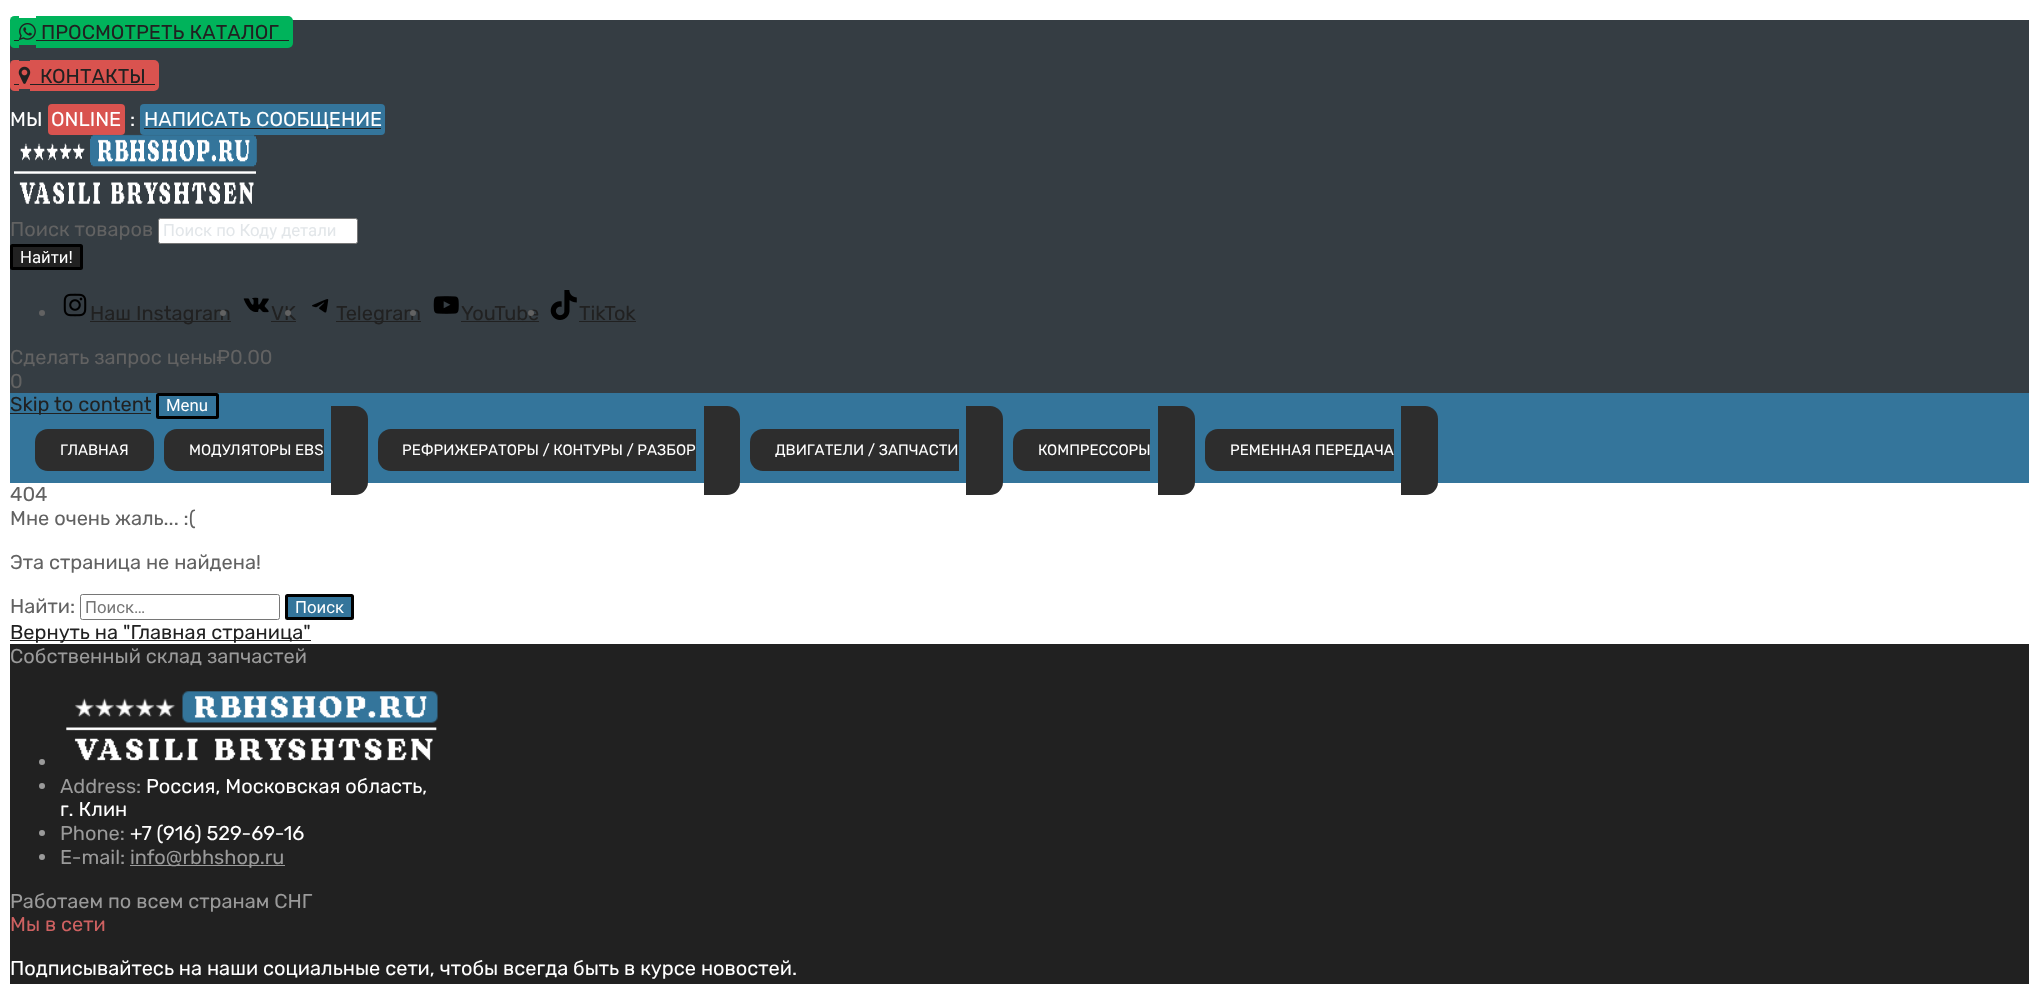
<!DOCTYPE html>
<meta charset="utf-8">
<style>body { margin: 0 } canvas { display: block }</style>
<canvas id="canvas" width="2038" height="984"></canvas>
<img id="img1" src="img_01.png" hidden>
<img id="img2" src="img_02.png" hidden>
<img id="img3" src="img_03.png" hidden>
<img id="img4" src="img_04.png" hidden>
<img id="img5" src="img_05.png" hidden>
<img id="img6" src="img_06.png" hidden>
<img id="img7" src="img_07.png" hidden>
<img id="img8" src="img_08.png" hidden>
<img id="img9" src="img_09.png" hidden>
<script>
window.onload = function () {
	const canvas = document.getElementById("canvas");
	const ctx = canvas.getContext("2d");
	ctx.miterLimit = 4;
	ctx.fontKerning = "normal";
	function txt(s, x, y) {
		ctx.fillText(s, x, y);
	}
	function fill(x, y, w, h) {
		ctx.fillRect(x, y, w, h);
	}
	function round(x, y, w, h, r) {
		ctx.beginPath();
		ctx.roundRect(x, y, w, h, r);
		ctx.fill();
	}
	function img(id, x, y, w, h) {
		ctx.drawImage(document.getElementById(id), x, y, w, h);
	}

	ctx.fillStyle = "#FFFFFF";
	fill(0, 0, 2038, 984);
	ctx.fillStyle = "#353D43";
	fill(10, 20, 2019, 373);
	ctx.fillStyle = "#00B35B";
	ctx.beginPath();
	ctx.roundRect(10, 16, 9, 32, [4.5, 0, 0, 4.5]);
	ctx.fill();
	fill(19, 18, 17, 27);
	ctx.beginPath();
	ctx.roundRect(36, 16, 257, 32, [0, 5, 5, 0]);
	ctx.fill();
	ctx.fillStyle = "#212121";
	fill(14, 40, 5, 1);
	img("img1", 18, 23, 18, 18);
	fill(36, 40, 253, 1);
	ctx.fillStyle = "#D9534F";
	ctx.beginPath();
	ctx.roundRect(10, 60, 9, 31, [4.5, 0, 0, 4.5]);
	ctx.fill();
	fill(19, 61, 11, 28);
	ctx.beginPath();
	ctx.roundRect(30, 60, 129, 31, [0, 5, 5, 0]);
	ctx.fill();
	img("img2", 18, 66, 13, 18);
	ctx.fillStyle = "#212121";
	fill(30, 84, 125, 1);
	fill(14, 84, 5, 1);
	ctx.fillStyle = "#D9534F";
	round(48, 104, 77, 31, 4);
	ctx.fillStyle = "#34759B";
	round(140, 104, 245, 31, 4);
	ctx.fillStyle = "#212121";
	fill(144, 128, 237, 1);
	img("img3", 14, 134, 243, 70);
	ctx.fillStyle = "#FFFFFF";
	ctx.beginPath();
	ctx.roundRect(158.5, 218.5, 199, 25, 2);
	ctx.fill();
	ctx.strokeStyle = "#767676";
	ctx.stroke();
	ctx.fillStyle = "#212121";
	ctx.beginPath();
	ctx.roundRect(11.5, 245.5, 70, 23, 1);
	ctx.fill();
	ctx.strokeStyle = "#000000";
	ctx.lineWidth = 3;
	ctx.stroke();
	ctx.fillStyle = "#626262";
	ctx.beginPath();
	ctx.arc(42, 313, 3, 0, Math.PI * 2);
	ctx.fill();
	img("img4", 63, 293, 24, 24);
	ctx.fillStyle = "#212121";
	fill(90, 321, 141, 1);
	img("img5", 243, 297, 26, 16);
	fill(271, 321, 25, 1);
	img("img6", 312, 299, 17, 14);
	fill(336, 321, 85, 1);
	img("img7", 433, 296, 26, 18);
	fill(461, 321, 78, 1);
	img("img8", 550, 290, 27, 30);
	fill(579, 321, 57, 1);
	ctx.fillStyle = "#34759B";
	fill(10, 393, 2019, 90);
	ctx.fillStyle = "#212121";
	fill(10, 413, 141, 1);
	ctx.beginPath();
	ctx.roundRect(157.5, 394.5, 60, 23, 1);
	ctx.stroke();
	ctx.fillStyle = "#2D2D2D";
	round(35, 429, 119, 42, 13);
	ctx.beginPath();
	ctx.roundRect(164, 429, 160, 42, [13, 0, 0, 13]);
	ctx.fill();
	ctx.beginPath();
	ctx.roundRect(331, 406, 37, 89, [0, 13, 13, 0]);
	ctx.fill();
	ctx.beginPath();
	ctx.roundRect(378, 429, 318, 42, [13, 0, 0, 13]);
	ctx.fill();
	ctx.beginPath();
	ctx.roundRect(704, 406, 36, 89, [0, 13, 13, 0]);
	ctx.fill();
	ctx.beginPath();
	ctx.roundRect(750, 429, 209, 42, [13, 0, 0, 13]);
	ctx.fill();
	ctx.beginPath();
	ctx.roundRect(966, 406, 37, 89, [0, 13, 13, 0]);
	ctx.fill();
	ctx.beginPath();
	ctx.roundRect(1013, 429, 137, 42, [13, 0, 0, 13]);
	ctx.fill();
	ctx.beginPath();
	ctx.roundRect(1158, 406, 37, 89, [0, 13, 13, 0]);
	ctx.fill();
	ctx.beginPath();
	ctx.roundRect(1205, 429, 189, 42, [13, 0, 0, 13]);
	ctx.fill();
	ctx.beginPath();
	ctx.roundRect(1401, 406, 37, 89, [0, 13, 13, 0]);
	ctx.fill();
	ctx.beginPath();
	ctx.roundRect(80.5, 594.5, 199, 25, 2);
	ctx.strokeStyle = "#767676";
	ctx.lineWidth = 1;
	ctx.stroke();
	ctx.fillStyle = "#34759B";
	ctx.beginPath();
	ctx.roundRect(286.5, 595.5, 66, 23, 1);
	ctx.fill();
	ctx.strokeStyle = "#000000";
	ctx.lineWidth = 3;
	ctx.stroke();
	ctx.fillStyle = "#212121";
	fill(10, 640, 301, 1);
	fill(10, 644, 2019, 340);
	img("img9", 66, 691, 372, 70);
	ctx.fillStyle = "#9A9A9A";
	ctx.beginPath();
	ctx.arc(42, 762, 3, 0, Math.PI * 2);
	ctx.fill();
	ctx.beginPath();
	ctx.arc(42, 786, 3, 0, Math.PI * 2);
	ctx.fill();
	ctx.beginPath();
	ctx.arc(42, 833, 3, 0, Math.PI * 2);
	ctx.fill();
	ctx.beginPath();
	ctx.arc(42, 857, 3, 0, Math.PI * 2);
	ctx.fill();
	fill(130, 865, 155, 1);
	ctx.font = "20px Rubik";
	ctx.fillStyle = "#212121";
	txt("ПРОСМОТРЕТЬ КАТАЛОГ", 41, 39);
	txt("КОНТАКТЫ", 40, 83);
	ctx.fillStyle = "#FFFFFF";
	txt("МЫ", 10, 126);
	txt("ONLINE", 51, 126);
	txt(":", 130, 126);
	txt("НАПИСАТЬ СООБЩЕНИЕ", 144, 126);
	ctx.fillStyle = "#626262";
	txt("Поиск товаров", 10, 236);
	ctx.font = "16.75px Roboto";
	ctx.fillStyle = "#E2E6E9";
	txt("Поиск по Коду детали", 163, 236);
	ctx.fillStyle = "#FFFFFF";
	txt("Найти!", 20, 263);
	ctx.font = "20px Rubik";
	ctx.fillStyle = "#212121";
	txt("Наш Instagram", 90, 320);
	ctx.fillStyle = "#626262";
	ctx.beginPath();
	ctx.arc(223, 313, 3, 0, Math.PI * 2);
	ctx.fill();
	ctx.fillStyle = "#212121";
	txt("VK", 271, 320);
	ctx.fillStyle = "#626262";
	ctx.beginPath();
	ctx.arc(288, 313, 3, 0, Math.PI * 2);
	ctx.fill();
	ctx.fillStyle = "#212121";
	txt("Telegram", 336, 320);
	ctx.fillStyle = "#626262";
	ctx.beginPath();
	ctx.arc(413, 313, 3, 0, Math.PI * 2);
	ctx.fill();
	ctx.fillStyle = "#212121";
	txt("YouTube", 461, 320);
	ctx.fillStyle = "#626262";
	ctx.beginPath();
	ctx.arc(531, 313, 3, 0, Math.PI * 2);
	ctx.fill();
	ctx.fillStyle = "#212121";
	txt("TikTok", 579, 320);
	ctx.fillStyle = "#626262";
	txt("Сделать запрос цены₽0.00", 10, 364);
	txt("0", 10, 388);
	ctx.fillStyle = "#212121";
	txt("Skip to content", 10, 411);
	ctx.font = "16.75px Roboto";
	ctx.fillStyle = "#FFFFFF";
	txt("Menu", 166, 411);
	ctx.font = "15px Rubik";
	txt("ГЛАВНАЯ", 60, 455);
	txt("МОДУЛЯТОРЫ EBS", 189, 455);
	txt("РЕФРИЖЕРАТОРЫ / КОНТУРЫ / РАЗБОР", 402, 455);
	txt("ДВИГАТЕЛИ / ЗАПЧАСТИ", 775, 455);
	txt("КОМПРЕССОРЫ", 1038, 455);
	txt("РЕМЕННАЯ ПЕРЕДАЧА", 1230, 455);
	ctx.font = "20px Rubik";
	ctx.fillStyle = "#626262";
	txt("404", 10, 501);
	txt("Мне очень жаль... :(", 10, 525);
	txt("Эта страница не найдена!", 10, 569);
	txt("Найти:", 10, 613);
	ctx.font = "16.75px Roboto";
	ctx.fillStyle = "#757575";
	txt("Поиск…", 85, 613);
	ctx.fillStyle = "#FFFFFF";
	txt("Поиск", 295, 613);
	ctx.font = "20px Rubik";
	ctx.fillStyle = "#212121";
	txt("Вернуть на \"Главная страница\"", 10, 639);
	ctx.fillStyle = "#9A9A9A";
	txt("Собственный склад запчастей", 10, 663);
	txt("Address:", 60, 793);
	ctx.fillStyle = "#FFFFFF";
	txt("Россия, Московская область,", 146, 793);
	txt("г. Клин", 60, 816);
	ctx.fillStyle = "#9A9A9A";
	txt("Phone:", 60, 840);
	ctx.fillStyle = "#FFFFFF";
	txt("+7 (916) 529-69-16", 130, 840);
	ctx.fillStyle = "#9A9A9A";
	txt("E-mail:", 60, 864);
	txt("info@rbhshop.ru", 130, 864);
	txt("Работаем по всем странам СНГ", 10, 908);
	ctx.fillStyle = "#CE6161";
	txt("Мы в сети", 10, 931);
	ctx.fillStyle = "#FFFFFF";
	txt("Подписывайтесь на наши социальные сети, чтобы всегда быть в курсе новостей.", 10, 975);
};
</script>
